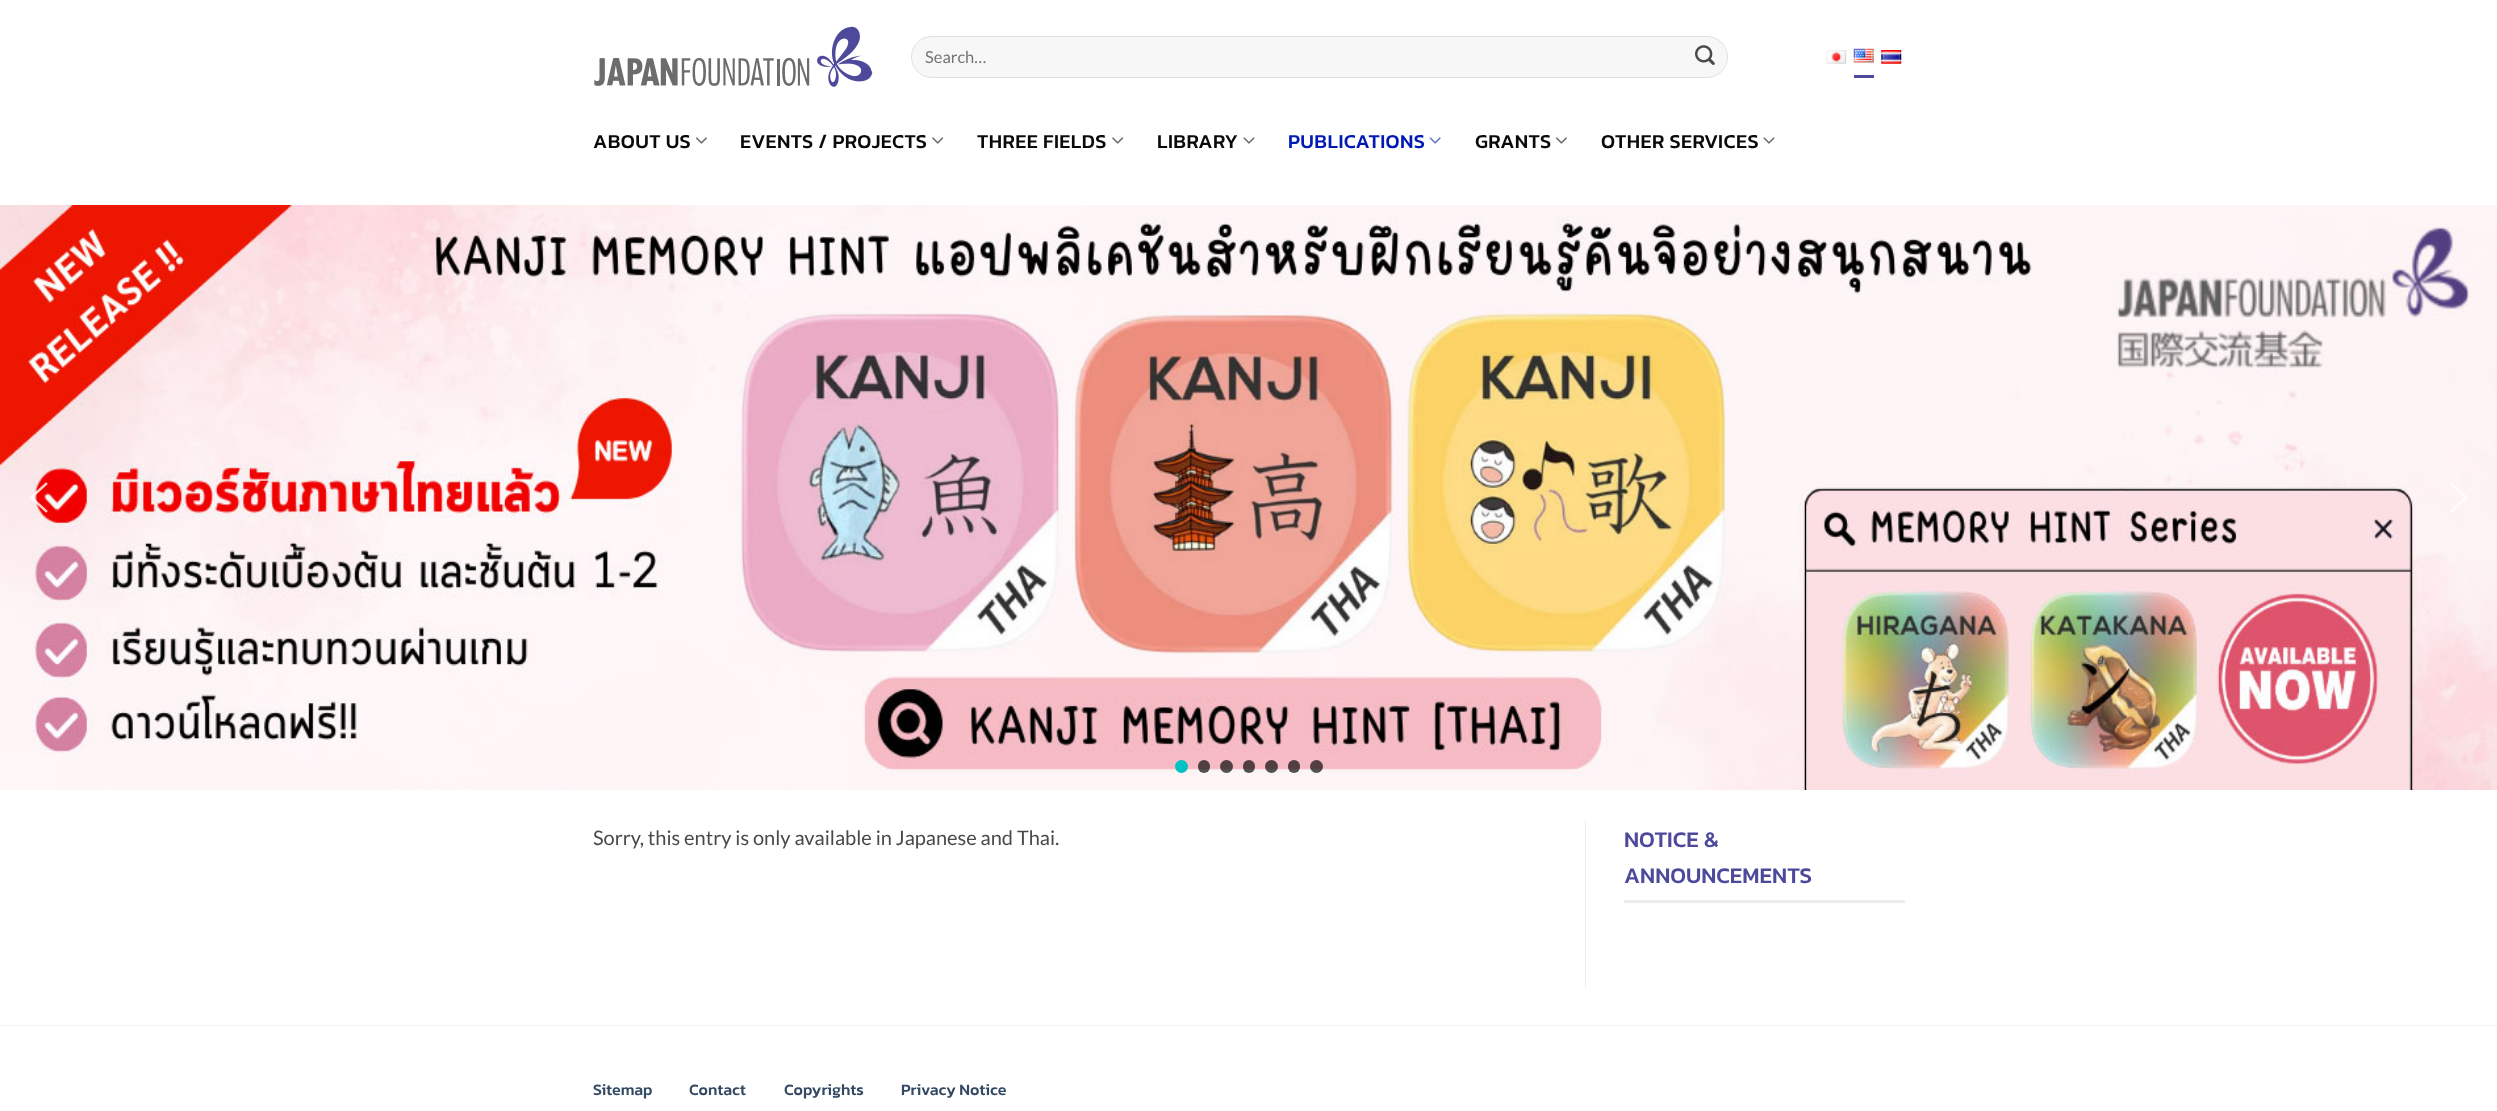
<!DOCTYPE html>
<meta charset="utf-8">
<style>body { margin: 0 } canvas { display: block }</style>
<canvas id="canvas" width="2497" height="1111"></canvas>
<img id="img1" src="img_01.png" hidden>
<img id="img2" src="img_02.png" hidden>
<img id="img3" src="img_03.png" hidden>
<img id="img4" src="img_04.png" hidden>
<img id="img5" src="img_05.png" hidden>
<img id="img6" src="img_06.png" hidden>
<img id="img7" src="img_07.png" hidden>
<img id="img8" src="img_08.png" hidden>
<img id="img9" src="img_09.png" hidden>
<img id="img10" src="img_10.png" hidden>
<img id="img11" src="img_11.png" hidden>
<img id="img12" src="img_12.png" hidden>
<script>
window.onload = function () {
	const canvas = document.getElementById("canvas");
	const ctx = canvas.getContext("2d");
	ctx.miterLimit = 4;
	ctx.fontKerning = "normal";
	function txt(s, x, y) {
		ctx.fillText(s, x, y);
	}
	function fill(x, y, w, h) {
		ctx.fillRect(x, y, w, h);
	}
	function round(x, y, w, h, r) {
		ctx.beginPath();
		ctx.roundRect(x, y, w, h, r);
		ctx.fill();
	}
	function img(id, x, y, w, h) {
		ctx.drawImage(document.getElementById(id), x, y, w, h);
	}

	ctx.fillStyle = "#FFFFFF";
	fill(0, 0, 2497, 1111);
	img("img1", 594, 26, 279, 61);
	ctx.fillStyle = "#F7F7F7";
	round(911, 36, 817, 42, 21);
	ctx.beginPath();
	ctx.roundRect(911.5, 36.5, 816, 41, 20.5);
	ctx.strokeStyle = "rgba(0, 0, 0, 0.09)";
	ctx.stroke();
	img("img2", 1695, 45, 20, 20);
	img("img3", 1826, 50, 21, 14);
	ctx.fillStyle = "#4D4A9C";
	fill(1854, 75, 20, 3);
	img("img4", 1853, 48, 21, 15);
	img("img5", 1881, 50, 21, 14);
	img("img6", 695, 137, 12, 7);
	img("img7", 932, 137, 12, 7);
	img("img7", 1112, 137, 12, 7);
	img("img8", 1243, 137, 12, 7);
	img("img9", 1429, 137, 12, 7);
	img("img6", 1555, 137, 12, 7);
	img("img8", 1763, 137, 12, 7);
	img("img10", 0, 205, 2497, 585);
	img("img11", 30, 482, 18, 31);
	img("img12", 2450, 483, 18, 29);
	ctx.fillStyle = "#00C1C4";
	ctx.beginPath();
	ctx.arc(1181.5, 766.5, 6.5, 0, Math.PI * 2);
	ctx.fill();
	ctx.fillStyle = "rgba(0, 0, 0, 0.67)";
	round(1198, 760, 12, 13, 6);
	ctx.beginPath();
	ctx.arc(1226.5, 766.5, 6.5, 0, Math.PI * 2);
	ctx.fill();
	round(1243, 760, 12, 13, 6);
	ctx.beginPath();
	ctx.arc(1271.5, 766.5, 6.5, 0, Math.PI * 2);
	ctx.fill();
	round(1288, 760, 12, 13, 6);
	ctx.beginPath();
	ctx.arc(1316.5, 766.5, 6.5, 0, Math.PI * 2);
	ctx.fill();
	ctx.fillStyle = "#ECECEC";
	fill(1585, 821, 1, 167);
	fill(1624, 900, 281, 3);
	ctx.fillStyle = "#F2F2F2";
	fill(0, 1025, 2497, 1);
	ctx.font = "16.5px Lato";
	ctx.fillStyle = "#757575";
	txt("Search…", 925, 63);
	ctx.letterSpacing = "0.4px";
	ctx.font = "500 20px Kanit";
	ctx.fillStyle = "#0A0A0A";
	txt("ABOUT US", 593, 148);
	txt("EVENTS / PROJECTS", 740, 148);
	txt("THREE FIELDS", 977, 148);
	txt("LIBRARY", 1157, 148);
	ctx.fillStyle = "#021AB4";
	txt("PUBLICATIONS", 1288, 148);
	ctx.fillStyle = "#0A0A0A";
	txt("GRANTS", 1475, 148);
	txt("OTHER SERVICES", 1601, 148);
	ctx.letterSpacing = "0px";
	ctx.font = "20px Lato";
	ctx.fillStyle = "#4A4A4A";
	txt("Sorry, this entry is only available in Japanese and Thai.", 593, 845);
	ctx.font = "500 22.5px Kanit";
	ctx.fillStyle = "#4D4A9C";
	txt("NOTICE &", 1624, 847);
	txt("ANNOUNCEMENTS", 1624, 883);
	ctx.font = "500 16px Kanit";
	ctx.fillStyle = "#334862";
	txt("Sitemap", 593, 1095);
	txt("Contact", 689, 1095);
	txt("Copyrights", 784, 1095);
	txt("Privacy Notice", 901, 1095);
};
</script>
